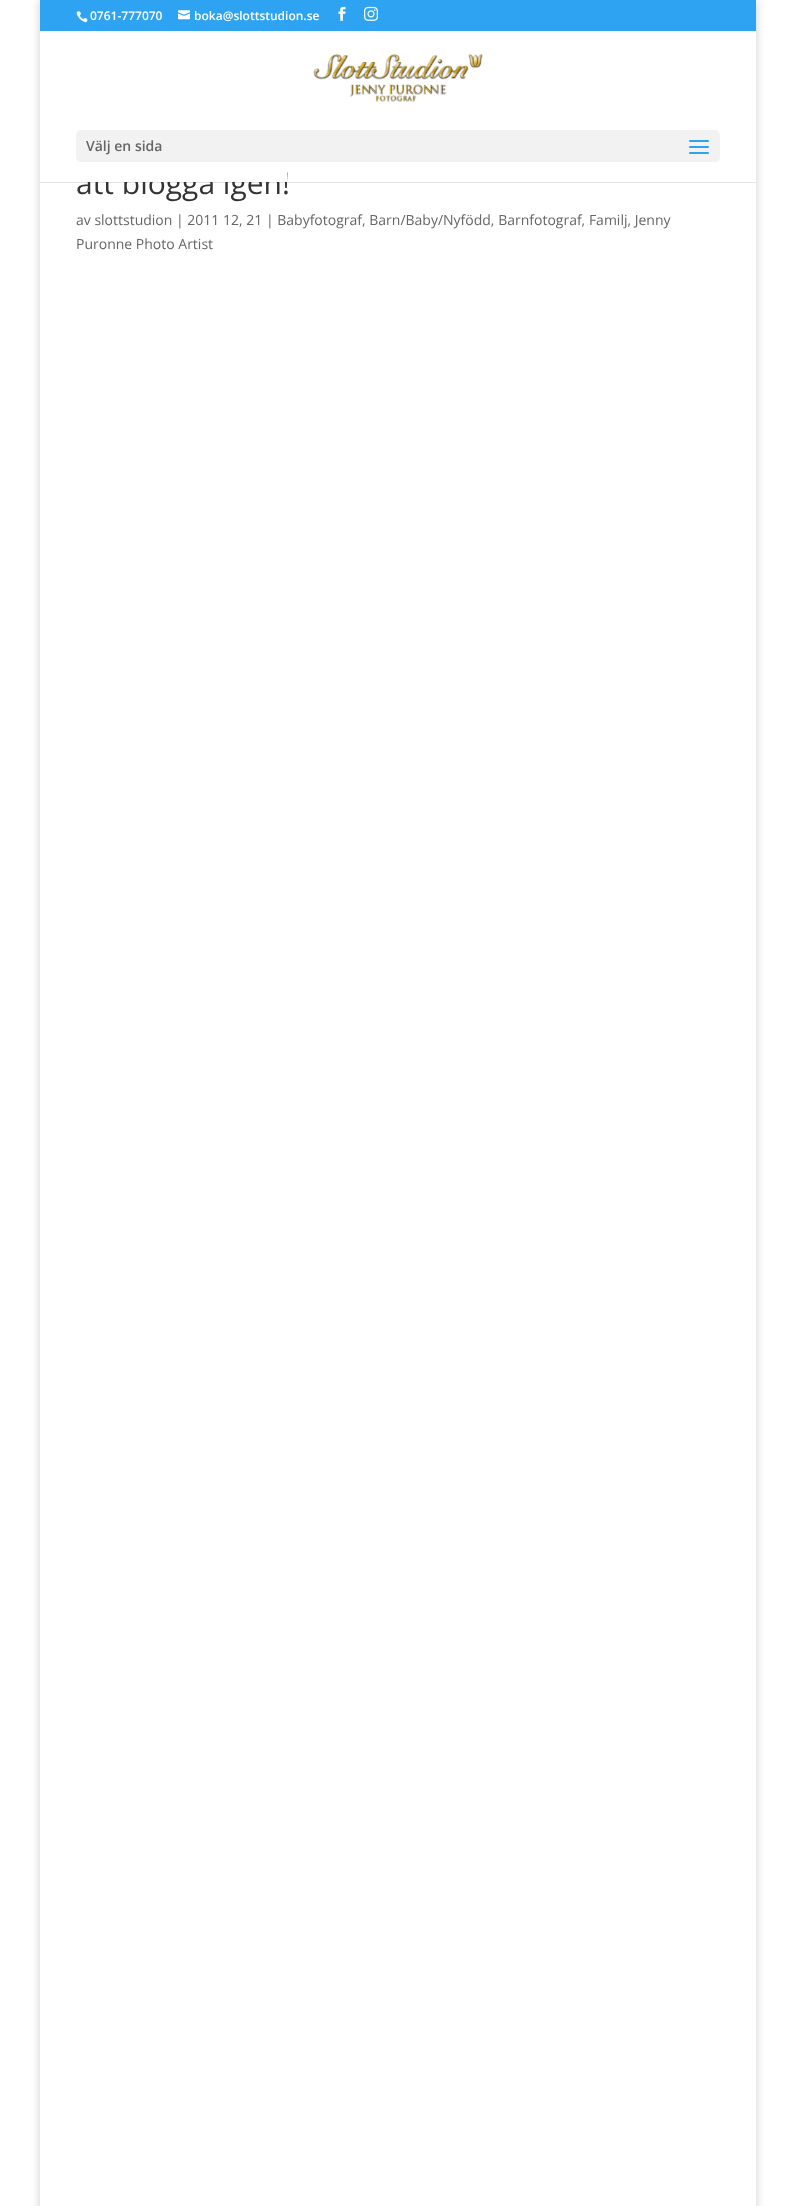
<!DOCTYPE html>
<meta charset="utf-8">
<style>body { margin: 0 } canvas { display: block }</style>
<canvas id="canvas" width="796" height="2206"></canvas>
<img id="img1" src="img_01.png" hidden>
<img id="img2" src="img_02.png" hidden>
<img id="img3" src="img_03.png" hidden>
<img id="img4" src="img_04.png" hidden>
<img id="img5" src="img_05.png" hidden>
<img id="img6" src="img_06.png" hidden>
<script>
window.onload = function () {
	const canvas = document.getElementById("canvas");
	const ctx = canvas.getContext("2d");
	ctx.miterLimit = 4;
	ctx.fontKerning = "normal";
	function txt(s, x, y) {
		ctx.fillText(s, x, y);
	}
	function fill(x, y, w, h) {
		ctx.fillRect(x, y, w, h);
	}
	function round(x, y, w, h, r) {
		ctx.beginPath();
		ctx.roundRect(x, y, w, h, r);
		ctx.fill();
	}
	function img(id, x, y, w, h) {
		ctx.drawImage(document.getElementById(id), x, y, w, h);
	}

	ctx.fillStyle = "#FFFFFF";
	fill(0, 0, 796, 2206);
	ctx.save();
	ctx.beginPath();
	ctx.moveTo(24, 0);
	ctx.lineTo(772, 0);
	ctx.lineTo(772, 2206);
	ctx.lineTo(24, 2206);
	ctx.closePath();
	ctx.moveTo(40, 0);
	ctx.lineTo(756, 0);
	ctx.lineTo(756, 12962);
	ctx.lineTo(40, 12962);
	ctx.closePath();
	ctx.clip("evenodd");
	ctx.fillStyle = "rgba(0, 0, 0, 0.2)";
	ctx.filter = "blur(5px)";
	ctx.beginPath();
	ctx.rect(40, 0, 716, 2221);
	ctx.fill();
	ctx.filter = "none";
	ctx.restore();
	ctx.fillStyle = "#2EA3F2";
	fill(40, 0, 716, 31);
	img("img1", 76, 11, 12, 12);
	img("img2", 178, 10, 12, 10);
	img("img3", 338, 6, 8, 15);
	img("img4", 364, 6, 14, 15);
	ctx.fillStyle = "rgba(0, 0, 0, 0.1)";
	fill(40, 182, 716, 1);
	img("img5", 313, 54, 170, 48);
	ctx.fillStyle = "#F2F2F2";
	round(76, 130, 644, 32, 5);
	img("img6", 689, 140, 20, 14);
	ctx.font = "600 12px Open Sans";
	ctx.fillStyle = "#FFFFFF";
	txt("0761-777070", 90, 20);
	txt("boka@slottstudion.se", 194, 20);
	ctx.font = "600 14px Open Sans";
	ctx.fillStyle = "#666666";
	txt("Välj en sida", 86, 151);
	ctx.font = "30px Open Sans";
	ctx.fillStyle = "#333333";
	txt("att blogga igen!", 76, 194);
	ctx.fillStyle = "#FFFFFF";
	fill(78, 171, 209, 11);
	ctx.font = "14px Open Sans";
	ctx.fillStyle = "#666666";
	txt("av slottstudion | 2011 12, 21 | Babyfotograf, Barn/Baby/Nyfödd, Barnfotograf, Familj, Jenny", 76, 225);
	txt("Puronne Photo Artist", 76, 249);
};
</script>
